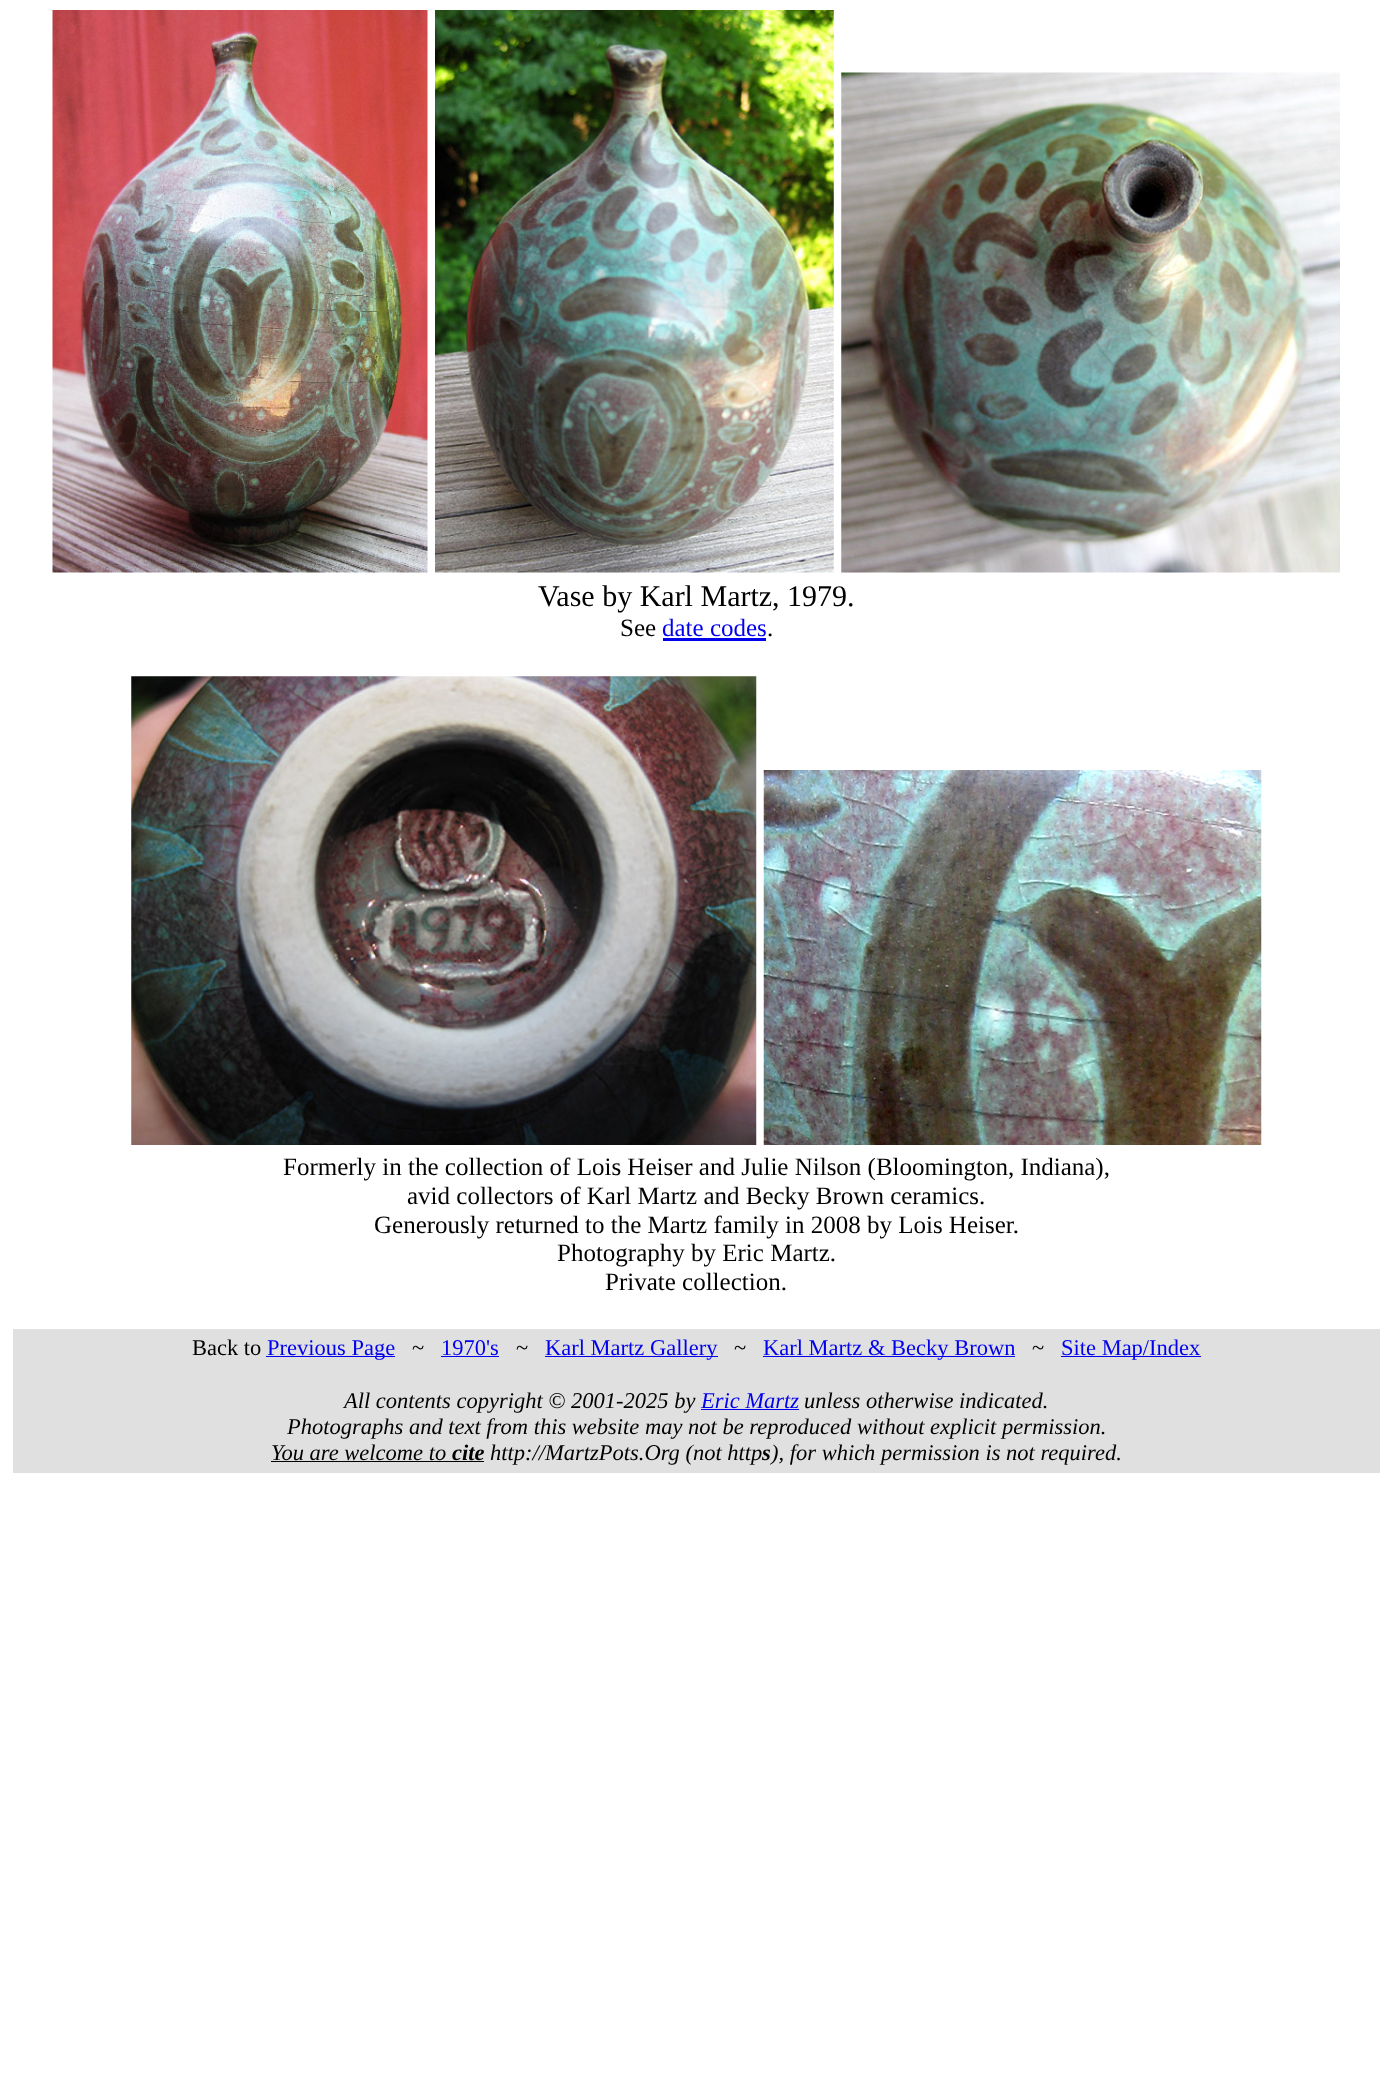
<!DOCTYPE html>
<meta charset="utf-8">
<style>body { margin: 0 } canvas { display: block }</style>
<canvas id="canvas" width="1392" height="2085"></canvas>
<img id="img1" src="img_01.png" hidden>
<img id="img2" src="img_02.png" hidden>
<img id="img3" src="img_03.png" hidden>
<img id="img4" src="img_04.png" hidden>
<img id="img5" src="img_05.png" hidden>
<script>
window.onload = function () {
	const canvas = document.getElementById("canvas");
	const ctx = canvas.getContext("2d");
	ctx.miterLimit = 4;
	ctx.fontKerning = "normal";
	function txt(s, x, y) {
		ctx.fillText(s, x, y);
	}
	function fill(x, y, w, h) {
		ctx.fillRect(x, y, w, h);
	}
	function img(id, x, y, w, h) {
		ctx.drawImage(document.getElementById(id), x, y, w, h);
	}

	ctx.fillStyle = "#FFFFFF";
	fill(0, 0, 1392, 2085);
	img("img1", 52, 10, 376, 563);
	img("img2", 435, 10, 399, 563);
	img("img3", 841, 72, 499, 501);
	ctx.fillStyle = "#0000EE";
	fill(663, 638, 103, 3);
	img("img4", 131, 676, 626, 469);
	img("img5", 763, 770, 499, 375);
	ctx.fillStyle = "#E0E0E0";
	fill(13, 1329, 1367, 144);
	ctx.fillStyle = "#0000EE";
	fill(266, 1356, 129, 1);
	fill(441, 1356, 58, 1);
	fill(545, 1356, 173, 1);
	fill(763, 1356, 252, 1);
	fill(1061, 1356, 140, 1);
	fill(701, 1409, 98, 1);
	ctx.fillStyle = "#000000";
	fill(271, 1461, 213, 1);
	ctx.font = "30px Liberation Serif";
	txt("Vase by Karl Martz, 1979.", 538, 606);
	ctx.font = "25px Liberation Serif";
	txt("See", 620, 636);
	ctx.fillStyle = "#0000EE";
	txt("date codes", 662, 636);
	ctx.fillStyle = "#000000";
	txt(".", 767, 636);
	txt("Formerly in the collection of Lois Heiser and Julie Nilson (Bloomington, Indiana),", 283, 1175);
	txt("avid collectors of Karl Martz and Becky Brown ceramics.", 407, 1204);
	txt("Generously returned to the Martz family in 2008 by Lois Heiser.", 374, 1233);
	txt("Photography by Eric Martz.", 557, 1261);
	txt("Private collection.", 605, 1290);
	ctx.font = "22.5px Liberation Serif";
	txt("Back to", 192, 1355);
	ctx.fillStyle = "#0000EE";
	txt("Previous Page", 267, 1355);
	ctx.fillStyle = "#000000";
	txt("~", 412, 1355);
	ctx.fillStyle = "#0000EE";
	txt("1970's", 441, 1355);
	ctx.fillStyle = "#000000";
	txt("~", 516, 1355);
	ctx.fillStyle = "#0000EE";
	txt("Karl Martz Gallery", 545, 1355);
	ctx.fillStyle = "#000000";
	txt("~", 734, 1355);
	ctx.fillStyle = "#0000EE";
	txt("Karl Martz & Becky Brown", 763, 1355);
	ctx.fillStyle = "#000000";
	txt("~", 1032, 1355);
	ctx.fillStyle = "#0000EE";
	txt("Site Map/Index", 1061, 1355);
	ctx.font = "italic 22.5px Liberation Serif";
	ctx.fillStyle = "#000000";
	txt("All contents copyright © 2001-2025 by", 344, 1408);
	ctx.fillStyle = "#0000EE";
	txt("Eric Martz", 701, 1408);
	ctx.fillStyle = "#000000";
	txt("unless otherwise indicated.", 804, 1408);
	txt("Photographs and text from this website may not be reproduced without explicit permission.", 287, 1434);
	txt("You are welcome to", 271, 1460);
	ctx.font = "italic bold 22.5px Liberation Serif";
	txt("cite", 452, 1460);
	ctx.font = "italic 22.5px Liberation Serif";
	txt("http://MartzPots.Org (not http", 490, 1460);
	ctx.font = "italic bold 22.5px Liberation Serif";
	txt("s", 762, 1460);
	ctx.font = "italic 22.5px Liberation Serif";
	txt("), for which permission is not required.", 771, 1460);
};
</script>
